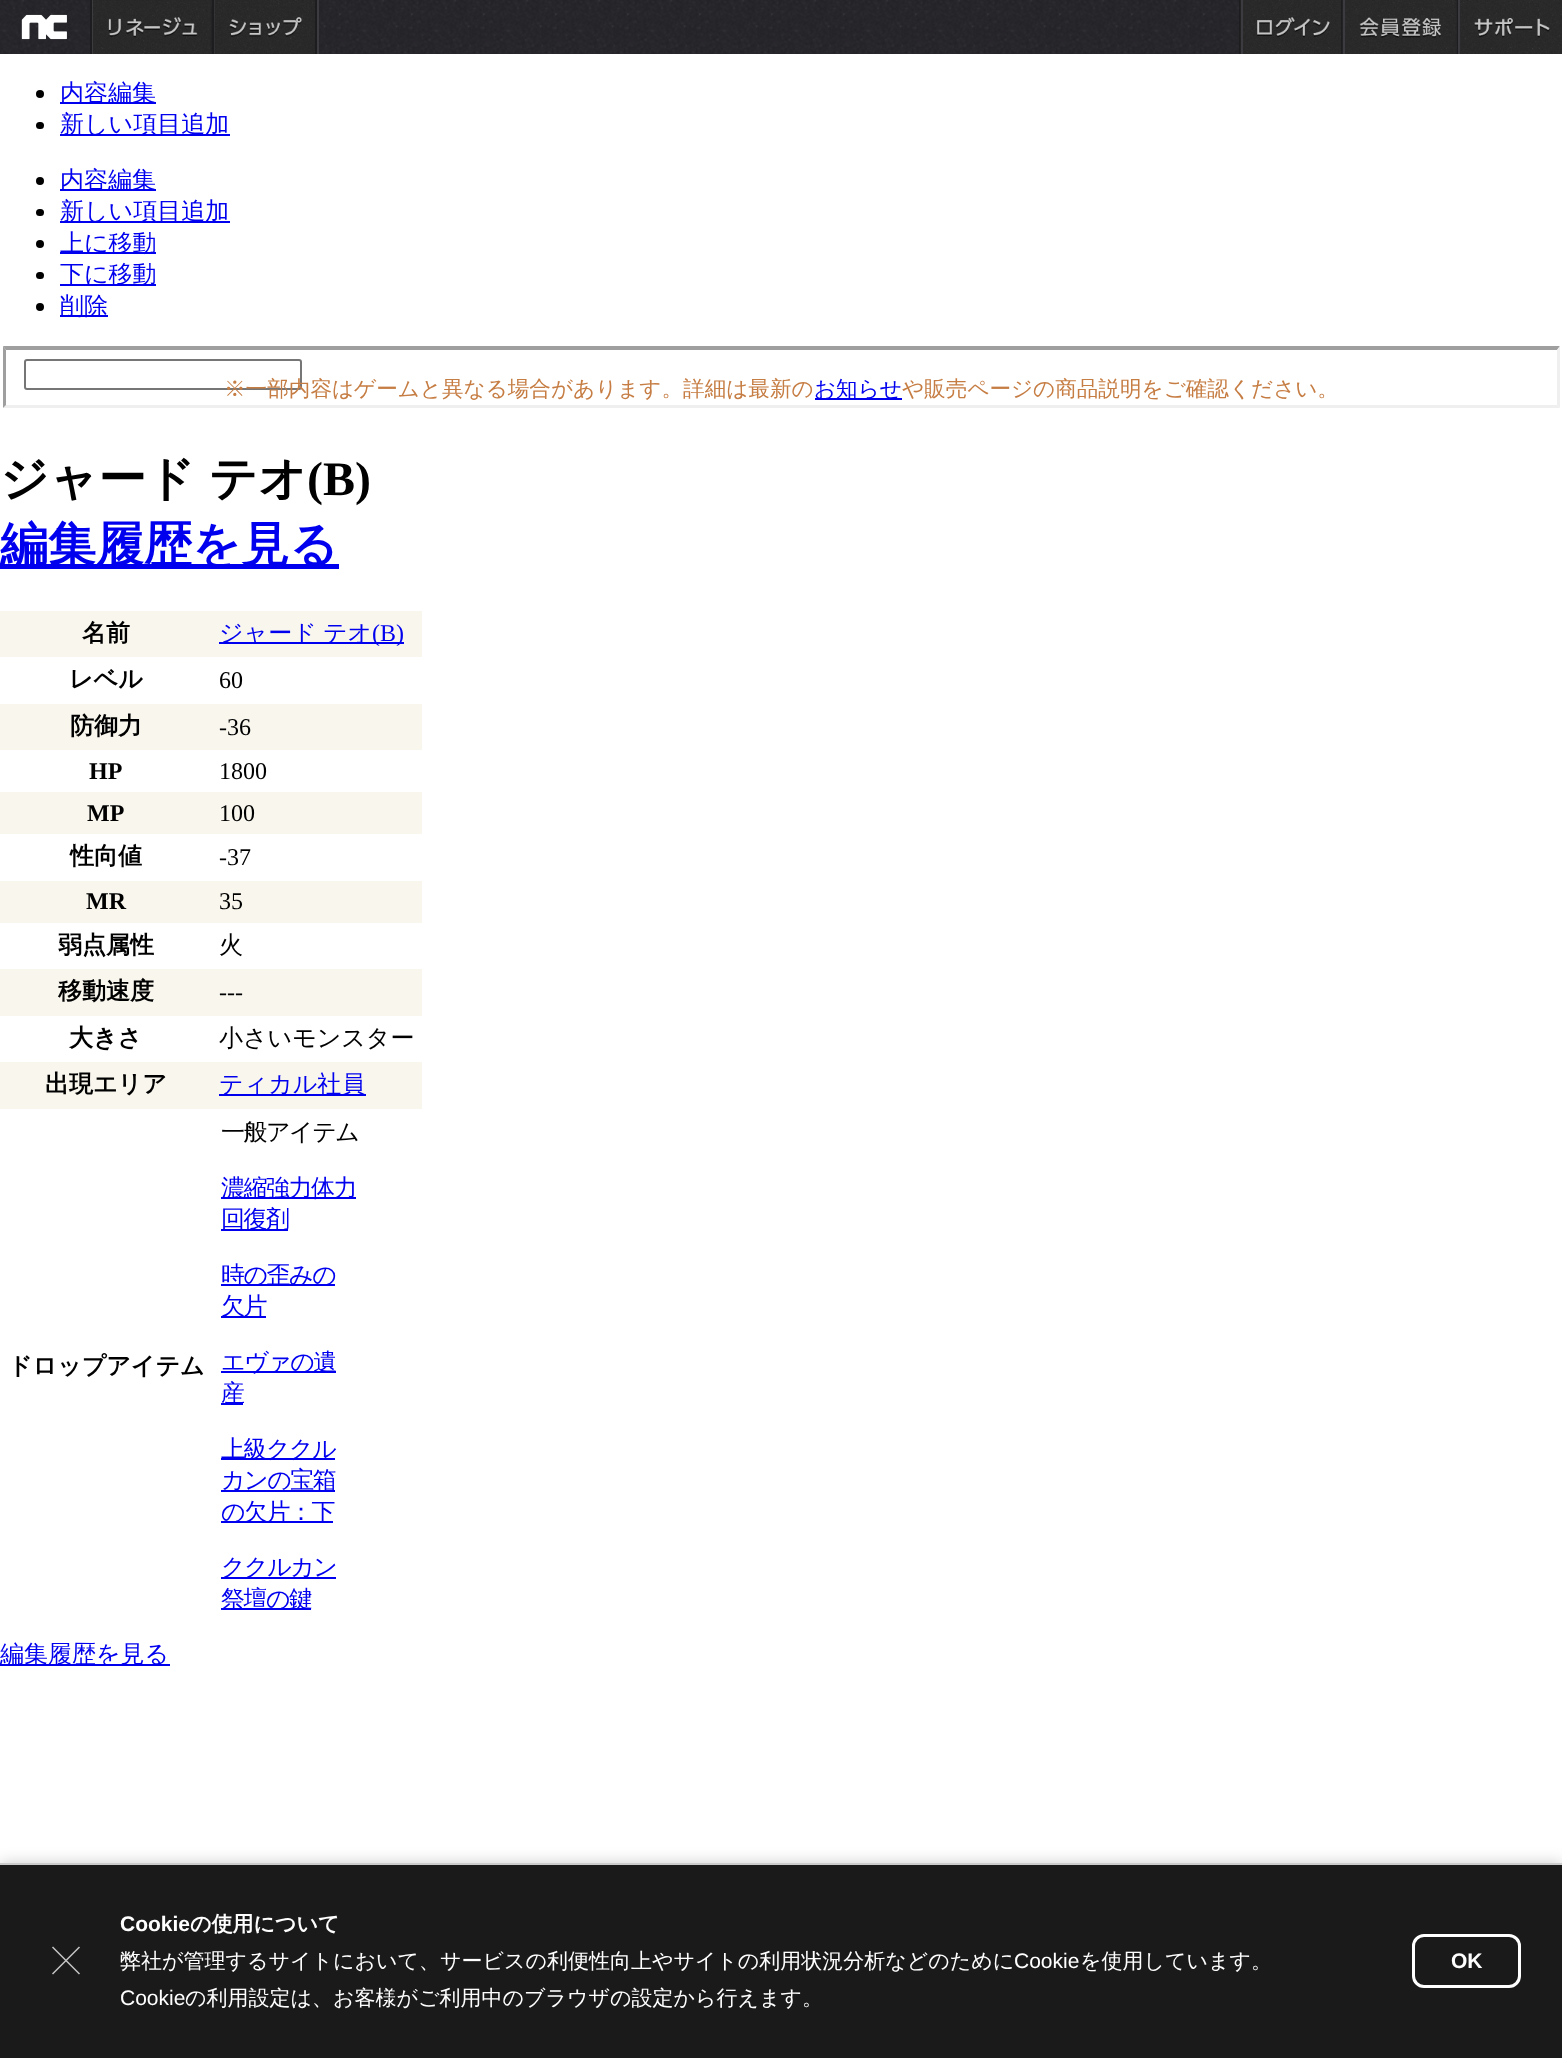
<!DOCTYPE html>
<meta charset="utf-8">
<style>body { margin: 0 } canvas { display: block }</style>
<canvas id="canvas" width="1562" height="2058"></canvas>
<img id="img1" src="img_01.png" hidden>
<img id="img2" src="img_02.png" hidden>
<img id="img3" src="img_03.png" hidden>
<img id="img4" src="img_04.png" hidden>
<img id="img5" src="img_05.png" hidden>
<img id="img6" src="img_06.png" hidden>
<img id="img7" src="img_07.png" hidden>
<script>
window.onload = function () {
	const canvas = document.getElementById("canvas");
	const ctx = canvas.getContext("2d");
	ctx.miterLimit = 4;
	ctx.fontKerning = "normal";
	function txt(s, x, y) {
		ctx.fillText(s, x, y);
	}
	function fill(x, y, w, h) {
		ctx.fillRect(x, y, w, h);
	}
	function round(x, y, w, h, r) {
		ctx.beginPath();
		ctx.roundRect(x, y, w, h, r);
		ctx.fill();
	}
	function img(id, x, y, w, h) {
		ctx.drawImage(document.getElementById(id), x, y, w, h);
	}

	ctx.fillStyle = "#FFFFFF";
	fill(0, 0, 1562, 2058);
	img("img1", 0, 0, 1457, 54);
	ctx.fillStyle = "#3C3B40";
	fill(92, 0, 1, 54);
	img("img2", 21, 14, 46, 26);
	ctx.fillStyle = "#1D1D20";
	fill(90, 0, 2, 54);
	ctx.fillStyle = "#3C3B40";
	fill(214, 0, 1, 54);
	ctx.fillStyle = "#1D1D20";
	fill(212, 0, 2, 54);
	img("img3", 93, 0, 119, 54);
	ctx.fillStyle = "#3C3B40";
	fill(317, 0, 2, 54);
	img("img4", 214, 0, 101, 54);
	ctx.fillStyle = "#1D1D20";
	fill(315, 0, 2, 54);
	fill(1239, 0, 2, 54);
	img("img5", 1240, 0, 101, 54);
	ctx.fillStyle = "#3C3B40";
	fill(1241, 0, 2, 54);
	ctx.fillStyle = "#1D1D20";
	fill(1341, 0, 2, 54);
	img("img6", 1342, 0, 115, 54);
	ctx.fillStyle = "#3C3B40";
	fill(1343, 0, 2, 54);
	ctx.fillStyle = "#1D1D20";
	fill(1457, 0, 1, 54);
	img("img7", 1460, 0, 102, 54);
	ctx.fillStyle = "#3C3B40";
	fill(1458, 0, 2, 54);
	ctx.fillStyle = "#000000";
	ctx.beginPath();
	ctx.arc(40, 94, 4, 0, Math.PI * 2);
	ctx.fill();
	ctx.fillStyle = "#0000EE";
	fill(60, 102, 96, 2);
	ctx.fillStyle = "#000000";
	round(36, 122, 8, 7, 3.5);
	ctx.fillStyle = "#0000EE";
	fill(60, 134, 170, 2);
	ctx.fillStyle = "#000000";
	ctx.beginPath();
	ctx.arc(40, 181, 4, 0, Math.PI * 2);
	ctx.fill();
	ctx.fillStyle = "#0000EE";
	fill(60, 189, 96, 2);
	ctx.fillStyle = "#000000";
	round(36, 209, 8, 7, 3.5);
	ctx.fillStyle = "#0000EE";
	fill(60, 221, 170, 2);
	ctx.fillStyle = "#000000";
	ctx.beginPath();
	ctx.arc(40, 244, 4, 0, Math.PI * 2);
	ctx.fill();
	ctx.fillStyle = "#0000EE";
	fill(60, 252, 96, 2);
	ctx.fillStyle = "#000000";
	round(36, 272, 8, 7, 3.5);
	ctx.fillStyle = "#0000EE";
	fill(60, 284, 96, 2);
	ctx.fillStyle = "#000000";
	ctx.beginPath();
	ctx.arc(40, 307, 4, 0, Math.PI * 2);
	ctx.fill();
	ctx.fillStyle = "#0000EE";
	fill(60, 315, 48, 2);
	ctx.fillStyle = "#9F9F9F";
	ctx.beginPath();
	ctx.moveTo(3, 346);
	ctx.lineTo(1560, 346);
	ctx.lineTo(1557, 350);
	ctx.lineTo(6, 350);
	ctx.closePath();
	ctx.fill();
	ctx.fillStyle = "#EFEFEF";
	ctx.beginPath();
	ctx.moveTo(1560, 346);
	ctx.lineTo(1560, 408);
	ctx.lineTo(1557, 405);
	ctx.lineTo(1557, 350);
	ctx.closePath();
	ctx.fill();
	ctx.beginPath();
	ctx.moveTo(1560, 408);
	ctx.lineTo(3, 408);
	ctx.lineTo(6, 405);
	ctx.lineTo(1557, 405);
	ctx.closePath();
	ctx.fill();
	ctx.fillStyle = "#9F9F9F";
	ctx.beginPath();
	ctx.moveTo(3, 408);
	ctx.lineTo(3, 346);
	ctx.lineTo(6, 350);
	ctx.lineTo(6, 405);
	ctx.closePath();
	ctx.fill();
	ctx.beginPath();
	ctx.roundRect(25, 360, 276, 29, 2);
	ctx.strokeStyle = "#767676";
	ctx.lineWidth = 2;
	ctx.stroke();
	ctx.fillStyle = "#0000EE";
	fill(815, 398, 87, 2);
	fill(0, 564, 339, 5);
	ctx.fillStyle = "#F8F6ED";
	fill(0, 611, 422, 46);
	ctx.fillStyle = "#0000EE";
	fill(219, 642, 185, 2);
	ctx.fillStyle = "#F8F6ED";
	fill(0, 704, 422, 46);
	fill(0, 792, 422, 42);
	fill(0, 881, 422, 42);
	fill(0, 969, 422, 47);
	fill(0, 1062, 422, 47);
	ctx.fillStyle = "#0000EE";
	fill(219, 1094, 147, 2);
	fill(221, 1197, 135, 2);
	fill(221, 1229, 67, 2);
	fill(221, 1284, 114, 2);
	fill(221, 1316, 45, 2);
	fill(221, 1371, 115, 2);
	fill(221, 1403, 22, 2);
	fill(221, 1458, 114, 2);
	fill(221, 1490, 114, 2);
	fill(221, 1521, 112, 2);
	fill(221, 1577, 115, 2);
	fill(221, 1608, 90, 2);
	fill(0, 1664, 170, 2);
	ctx.fillStyle = "rgba(0, 0, 0, 0.2)";
	ctx.filter = "blur(7.5px)";
	ctx.beginPath();
	ctx.rect(0, 1863, 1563, 195);
	ctx.fill();
	ctx.filter = "none";
	ctx.fillStyle = "#1A1A1A";
	fill(0, 1865, 1562, 193);
	ctx.fillStyle = "#CCCCCC";
	fill(0, 1863, 1562, 2);
	ctx.beginPath();
	ctx.moveTo(52.5, 1947);
	ctx.lineTo(79.5, 1974);
	ctx.moveTo(52.5, 1974);
	ctx.lineTo(79.5, 1947);
	ctx.strokeStyle = "#C6C6C6";
	ctx.lineWidth = 1.5;
	ctx.stroke();
	ctx.beginPath();
	ctx.roundRect(1413.5, 1935.5, 106, 51, 10.5);
	ctx.strokeStyle = "#FFFFFF";
	ctx.lineWidth = 3;
	ctx.stroke();
	ctx.font = "500 24px WenQuanYi Zen Hei";
	ctx.fillStyle = "#0000EE";
	txt("内容編集", 60, 101);
	txt("新しい項目追加", 60, 132);
	txt("内容編集", 60, 188);
	txt("新しい項目追加", 60, 219);
	txt("上に移動", 60, 251);
	txt("下に移動", 60, 282);
	txt("削除", 60, 314);
	ctx.font = "500 21.6px WenQuanYi Zen Hei";
	ctx.fillStyle = "#C67D43";
	txt("※一部内容はゲームと異なる場合があります。詳細は最新の", 224, 396);
	ctx.fillStyle = "#0000EE";
	txt("お知らせ", 814, 396);
	ctx.fillStyle = "#C67D43";
	txt("や販売ページの商品説明をご確認ください。", 902, 396);
	ctx.wordSpacing = "-1px";
	ctx.font = "bold 48px WenQuanYi Zen Hei";
	ctx.fillStyle = "#000000";
	txt("ジャード テオ", 0, 495);
	ctx.wordSpacing = "0px";
	ctx.font = "bold 48px Liberation Serif";
	txt("(B)", 307, 495);
	ctx.font = "bold 48px WenQuanYi Zen Hei";
	ctx.fillStyle = "#0000EE";
	txt("編集履歴を見る", 0, 561);
	ctx.font = "bold 24px WenQuanYi Zen Hei";
	ctx.fillStyle = "#000000";
	txt("名前", 82, 641);
	ctx.wordSpacing = "-1px";
	ctx.font = "500 24px WenQuanYi Zen Hei";
	ctx.fillStyle = "#0000EE";
	txt("ジャード テオ", 219, 641);
	ctx.wordSpacing = "0px";
	ctx.font = "24px Liberation Serif";
	txt("(B)", 372, 641);
	ctx.font = "bold 24px WenQuanYi Zen Hei";
	ctx.fillStyle = "#000000";
	txt("レベル", 69, 687);
	ctx.font = "24px Liberation Serif";
	txt("60", 219, 688);
	ctx.font = "bold 24px WenQuanYi Zen Hei";
	txt("防御力", 70, 734);
	ctx.font = "24px Liberation Serif";
	txt("-36", 219, 735);
	ctx.font = "bold 24px Liberation Serif";
	txt("HP", 89, 779);
	ctx.font = "24px Liberation Serif";
	txt("1800", 219, 779);
	ctx.font = "bold 24px Liberation Serif";
	txt("MP", 87, 821);
	ctx.font = "24px Liberation Serif";
	txt("100", 219, 821);
	ctx.font = "bold 24px WenQuanYi Zen Hei";
	txt("性向値", 70, 864);
	ctx.font = "24px Liberation Serif";
	txt("-37", 219, 865);
	ctx.font = "bold 24px Liberation Serif";
	txt("MR", 86, 909);
	ctx.font = "24px Liberation Serif";
	txt("35", 219, 909);
	ctx.font = "bold 24px WenQuanYi Zen Hei";
	txt("弱点属性", 58, 953);
	ctx.font = "500 24px WenQuanYi Zen Hei";
	txt("火", 219, 953);
	ctx.font = "bold 24px WenQuanYi Zen Hei";
	txt("移動速度", 58, 999);
	ctx.font = "24px Liberation Serif";
	txt("---", 219, 1000);
	ctx.font = "bold 24px WenQuanYi Zen Hei";
	txt("大きさ", 69, 1046);
	ctx.font = "500 24px WenQuanYi Zen Hei";
	txt("小さいモンスター", 219, 1046);
	ctx.font = "bold 24px WenQuanYi Zen Hei";
	txt("出現エリア", 45, 1092);
	ctx.font = "500 24px WenQuanYi Zen Hei";
	ctx.fillStyle = "#0000EE";
	txt("ティカル社員", 219, 1092);
	ctx.font = "bold 24px WenQuanYi Zen Hei";
	ctx.fillStyle = "#000000";
	txt("ドロップアイテム", 8, 1374);
	ctx.letterSpacing = "-1.5px";
	ctx.font = "500 24px WenQuanYi Zen Hei";
	txt("一般アイテム", 221, 1140);
	ctx.fillStyle = "#0000EE";
	txt("濃縮強力体力", 221, 1196);
	txt("回復剤", 221, 1227);
	txt("時の歪みの", 221, 1283);
	txt("欠片", 221, 1314);
	txt("エヴァの遺", 221, 1370);
	txt("産", 221, 1401);
	txt("上級ククル", 221, 1457);
	txt("カンの宝箱", 221, 1488);
	txt("の欠片：下", 221, 1520);
	txt("ククルカン", 221, 1575);
	txt("祭壇の鍵", 221, 1607);
	ctx.letterSpacing = "0px";
	txt("編集履歴を見る", 0, 1662);
	ctx.font = "bold 21px Liberation Sans";
	ctx.fillStyle = "#FFFFFF";
	txt("Cookie", 120, 1931);
	ctx.font = "bold 21px WenQuanYi Zen Hei";
	txt("の使用について", 190, 1931);
	ctx.font = "500 21px WenQuanYi Zen Hei";
	txt("弊社が管理するサイトにおいて、サービスの利便性向上やサイトの利用状況分析などのために", 120, 1968);
	ctx.font = "21px Liberation Sans";
	txt("Cookie", 1014, 1968);
	ctx.font = "500 21px WenQuanYi Zen Hei";
	txt("を使用しています。", 1080, 1968);
	ctx.font = "21px Liberation Sans";
	txt("Cookie", 120, 2005);
	ctx.font = "500 21px WenQuanYi Zen Hei";
	txt("の利用設定は、お客様がご利用中のブラウザの設定から行えます。", 185, 2005);
	ctx.font = "bold 21px Liberation Sans";
	txt("OK", 1451, 1968);
};
</script>
